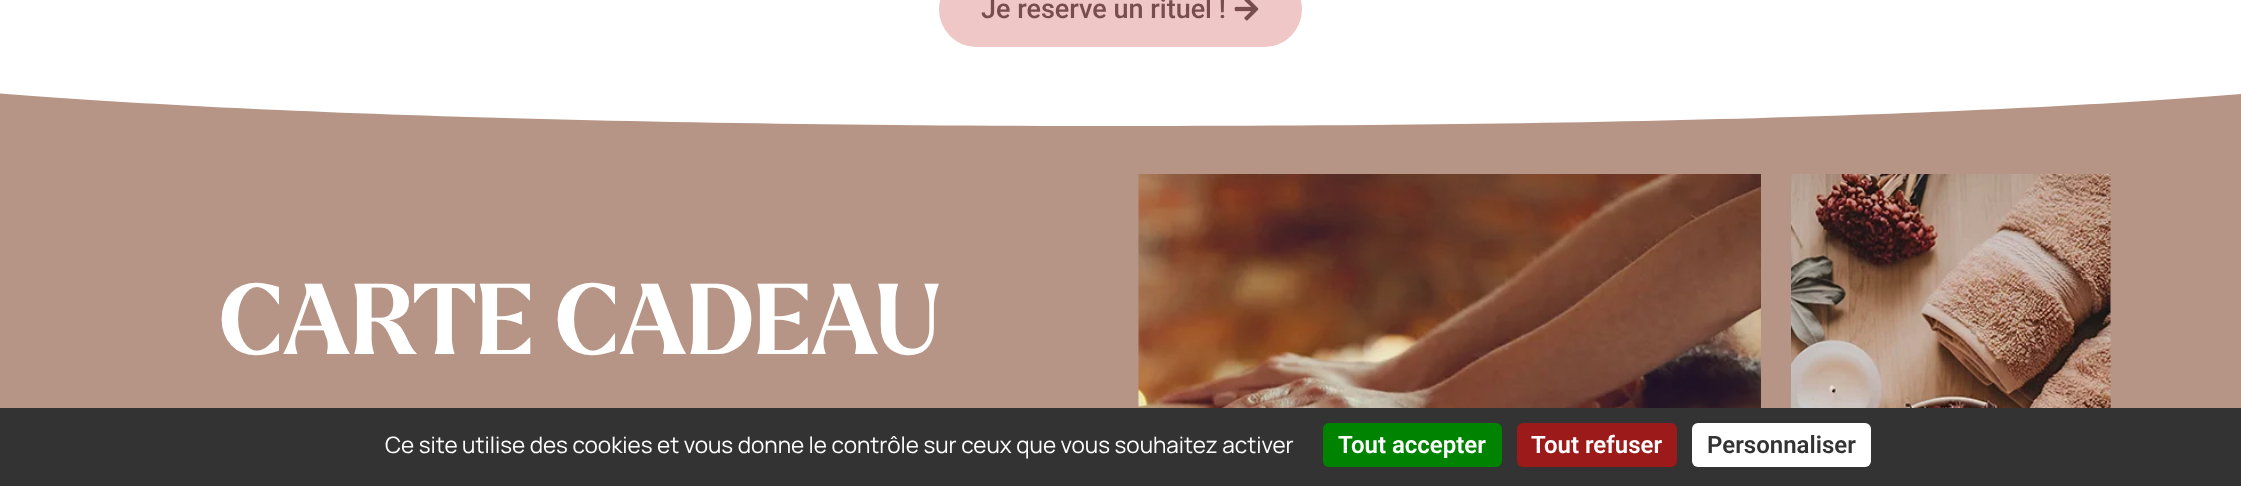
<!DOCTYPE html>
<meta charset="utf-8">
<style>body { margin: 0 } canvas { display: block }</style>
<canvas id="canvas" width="2241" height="486"></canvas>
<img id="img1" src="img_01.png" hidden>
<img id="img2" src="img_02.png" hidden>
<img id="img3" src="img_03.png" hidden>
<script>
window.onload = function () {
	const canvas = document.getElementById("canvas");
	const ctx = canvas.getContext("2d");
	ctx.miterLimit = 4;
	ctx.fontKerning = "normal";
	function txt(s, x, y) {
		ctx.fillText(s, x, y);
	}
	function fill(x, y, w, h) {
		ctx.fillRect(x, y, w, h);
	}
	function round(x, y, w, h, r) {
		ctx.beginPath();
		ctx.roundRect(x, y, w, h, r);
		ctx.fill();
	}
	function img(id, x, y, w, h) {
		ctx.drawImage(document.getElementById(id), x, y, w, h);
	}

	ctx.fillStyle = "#FFFFFF";
	fill(0, 0, 2241, 486);
	ctx.fillStyle = "#EFC7C7";
	round(939, -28, 363, 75, 37.5);
	img("img1", 1234, 0, 25, 21);
	ctx.fillStyle = "#B69586";
	fill(0, 93, 2241, 315);
	ctx.fillStyle = "#FFFFFF";
	ctx.beginPath();
	ctx.moveTo(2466, 63);
	ctx.lineTo(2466, 60);
	ctx.lineTo(-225, 60);
	ctx.lineTo(-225, 63);
	ctx.bezierCurveTo(-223, 75, 116, 125, 1120, 126);
	ctx.bezierCurveTo(2125, 127, 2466, 75, 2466, 63);
	ctx.closePath();
	ctx.fill();
	img("img2", 1138, 174, 623, 234);
	img("img3", 1791, 174, 320, 234);
	ctx.fillStyle = "#333333";
	fill(0, 408, 2241, 78);
	ctx.fillStyle = "#008300";
	round(1323, 423, 179, 44, 6);
	ctx.fillStyle = "#9C1A1A";
	round(1517, 423, 160, 44, 6);
	ctx.fillStyle = "#FFFFFF";
	round(1692, 423, 179, 44, 6);
	ctx.font = "500 27px Roboto";
	ctx.fillStyle = "#784D4E";
	txt("Je reserve un rituel !", 981, 18);
	ctx.font = "bold 97.5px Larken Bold";
	ctx.fillStyle = "#FFFFFF";
	txt("CARTE CADEAU", 219, 354);
	ctx.font = "22.5px Manrope";
	txt("Ce site utilise des cookies et vous donne le contrôle sur ceux que vous souhaitez activer", 385, 453);
	ctx.font = "600 24px Roboto";
	txt("Tout accepter", 1338, 453);
	txt("Tout refuser", 1531, 453);
	ctx.fillStyle = "#333333";
	txt("Personnaliser", 1707, 453);
};
</script>
